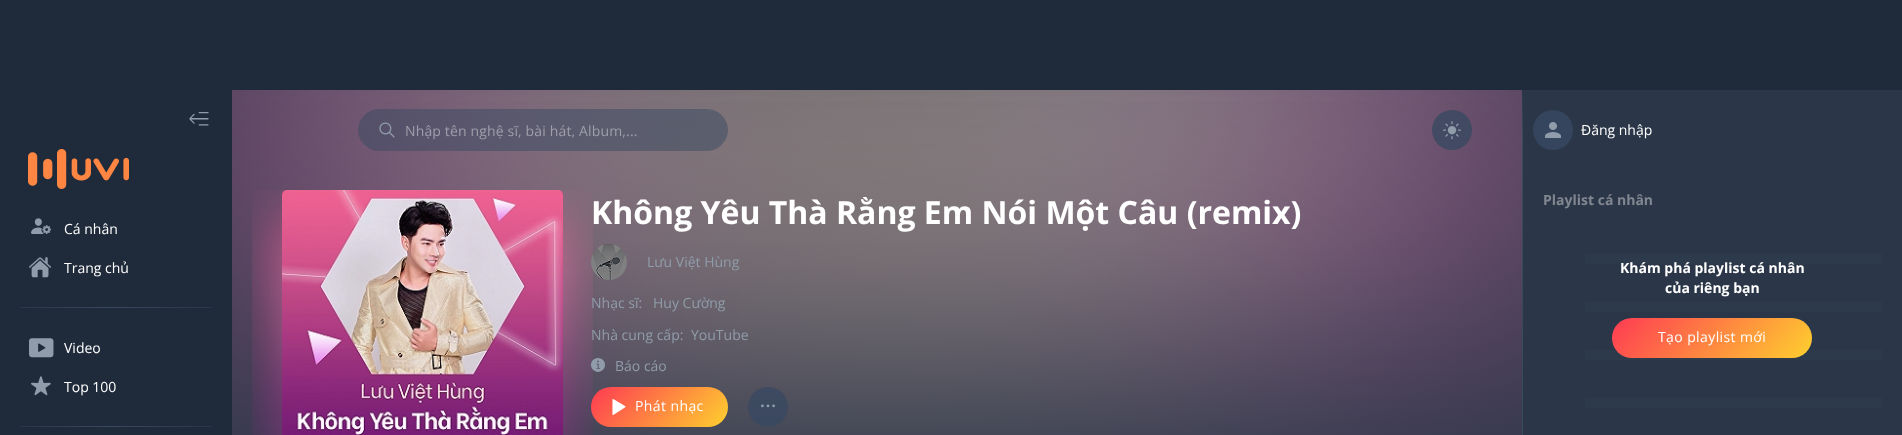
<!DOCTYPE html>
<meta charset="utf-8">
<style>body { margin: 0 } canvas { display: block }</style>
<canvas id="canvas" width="1902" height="435"></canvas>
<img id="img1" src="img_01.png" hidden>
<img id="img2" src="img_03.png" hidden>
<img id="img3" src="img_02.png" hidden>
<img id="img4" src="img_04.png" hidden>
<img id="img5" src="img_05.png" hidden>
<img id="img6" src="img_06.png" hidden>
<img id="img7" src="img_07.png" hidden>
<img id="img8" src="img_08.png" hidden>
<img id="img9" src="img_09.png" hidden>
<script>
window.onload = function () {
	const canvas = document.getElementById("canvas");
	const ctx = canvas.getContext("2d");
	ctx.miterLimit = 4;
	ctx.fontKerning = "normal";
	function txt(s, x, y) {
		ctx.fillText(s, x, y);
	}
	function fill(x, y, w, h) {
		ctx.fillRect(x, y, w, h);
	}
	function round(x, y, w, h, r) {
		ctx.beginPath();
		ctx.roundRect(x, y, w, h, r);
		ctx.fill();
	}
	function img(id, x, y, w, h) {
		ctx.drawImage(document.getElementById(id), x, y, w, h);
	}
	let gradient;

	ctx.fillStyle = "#2B3748";
	fill(0, 0, 1902, 435);
	ctx.fillStyle = "#1F2A3A";
	fill(0, 0, 1902, 90);
	fill(0, 90, 232, 345);
	img("img1", 28, 149, 101, 40);
	gradient = ctx.createLinearGradient(20, 308, 212, 308);
	gradient.addColorStop(0, "#2B3748");
	gradient.addColorStop(0.47, "#384962");
	gradient.addColorStop(0.98, "#2B3748");
	ctx.fillStyle = gradient;
	fill(20, 307, 192, 1);
	gradient = ctx.createLinearGradient(20, 427, 212, 427);
	gradient.addColorStop(0, "#2B3748");
	gradient.addColorStop(0.47, "#384962");
	gradient.addColorStop(0.98, "#2B3748");
	ctx.fillStyle = gradient;
	fill(20, 426, 192, 1);
	img("img2", 232, 90, 1290, 345);
	gradient = ctx.createLinearGradient(877, 90, 877, 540);
	gradient.addColorStop(0, "rgba(43, 55, 72, 0)");
	gradient.addColorStop(1, "#2B3748");
	ctx.fillStyle = gradient;
	fill(232, 101, 1290, 334);
	ctx.beginPath();
	ctx.roundRect(358.5, 109.5, 369, 41, 20.5);
	ctx.strokeStyle = "rgba(56, 73, 98, 0.5)";
	ctx.stroke();
	ctx.fillStyle = "rgba(56, 73, 98, 0.5)";
	round(359, 110, 368, 40, 20);
	img("img3", 379, 122, 16, 16);
	ctx.fillStyle = "rgba(56, 73, 98, 0.8)";
	ctx.beginPath();
	ctx.arc(1452, 130, 20, 0, Math.PI * 2);
	ctx.fill();
	img("img4", 252, 190, 341, 245);
	img("img5", 282, 190, 281, 245);
	img("img6", 591, 244, 36, 36);
	gradient = ctx.createLinearGradient(612, 364, 707, 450);
	gradient.addColorStop(0.05, "#FE4251");
	gradient.addColorStop(0.96, "#FECA30");
	ctx.fillStyle = gradient;
	round(591, 387, 137, 40, 20);
	img("img7", 612, 399, 14, 16);
	ctx.fillStyle = "rgba(56, 73, 98, 0.8)";
	ctx.beginPath();
	ctx.arc(768, 407, 20, 0, Math.PI * 2);
	ctx.fill();
	img("img8", 761, 404, 14, 4);
	gradient = ctx.createLinearGradient(1523, 90, 1523, 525);
	gradient.addColorStop(0, "#2B3748");
	gradient.addColorStop(0.1, "#384962");
	ctx.fillStyle = gradient;
	fill(1522, 90, 1, 345);
	ctx.fillStyle = "#35455D";
	ctx.beginPath();
	ctx.arc(1553, 130, 20, 0, Math.PI * 2);
	ctx.fill();
	img("img9", 1545, 122, 16, 16);
	ctx.fillStyle = "#2D3A4C";
	fill(1585, 254, 297, 10);
	fill(1585, 302, 297, 10);
	fill(1585, 350, 297, 10);
	fill(1585, 398, 297, 10);
	gradient = ctx.createLinearGradient(1647, 279, 1777, 397);
	gradient.addColorStop(0.05, "#FE4251");
	gradient.addColorStop(0.96, "#FECA30");
	ctx.fillStyle = gradient;
	round(1612, 318, 200, 40, 20);
	ctx.font = "20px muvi";
	ctx.fillStyle = "#909CAA";
	txt("3", 189, 128);
	txt("6", 31, 237);
	ctx.font = "14px Open Sans";
	ctx.fillStyle = "#FFFFFF";
	txt("Cá nhân", 64, 234);
	ctx.font = "20px muvi";
	ctx.fillStyle = "#909CAA";
	txt("$", 29, 276);
	ctx.font = "14px Open Sans";
	ctx.fillStyle = "#FFFFFF";
	txt("Trang chủ", 64, 273);
	ctx.font = "19px muvi";
	ctx.fillStyle = "#909CAA";
	txt("+", 29, 356);
	ctx.font = "14px Open Sans";
	ctx.fillStyle = "#FFFFFF";
	txt("Video", 64, 353);
	ctx.font = "20px muvi";
	ctx.fillStyle = "#909CAA";
	txt("5", 31, 395);
	ctx.font = "14px Open Sans";
	ctx.fillStyle = "#FFFFFF";
	txt("Top 100", 64, 392);
	ctx.letterSpacing = "0.15px";
	ctx.fillStyle = "#9F9EAA";
	txt("Nhập tên nghệ sĩ, bài hát, Album,...", 405, 136);
	ctx.letterSpacing = "0px";
	ctx.font = "18px muvi";
	ctx.fillStyle = "#909CAA";
	txt("2", 1443, 138);
	ctx.font = "bold 32px Open Sans";
	ctx.fillStyle = "#FFFFFF";
	txt("Không Yêu Thà Rằng Em Nói Một Câu (remix)", 591, 224);
	ctx.font = "14px Open Sans";
	ctx.fillStyle = "#909CAA";
	txt("Lưu Việt Hùng", 647, 267);
	txt("Nhạc sĩ:", 591, 308);
	txt("Huy Cường", 653, 308);
	txt("Nhà cung cấp:", 591, 340);
	txt("YouTube", 691, 340);
	ctx.font = "14px muvi";
	txt("8", 591, 371);
	ctx.font = "14px Open Sans";
	txt("Báo cáo", 615, 371);
	ctx.letterSpacing = "0.4px";
	ctx.fillStyle = "#FFFFFF";
	txt("Phát nhạc", 635, 411);
	ctx.letterSpacing = "0px";
	txt("Đăng nhập", 1581, 135);
	ctx.font = "bold 14px Open Sans";
	ctx.fillStyle = "#808791";
	txt("Playlist cá nhân", 1543, 205);
	ctx.fillStyle = "#FFFFFF";
	txt("Khám phá playlist cá nhân", 1620, 273);
	txt("của riêng bạn", 1665, 293);
	ctx.letterSpacing = "0.4px";
	ctx.font = "14px Open Sans";
	txt("Tạo playlist mới", 1658, 342);
};
</script>
